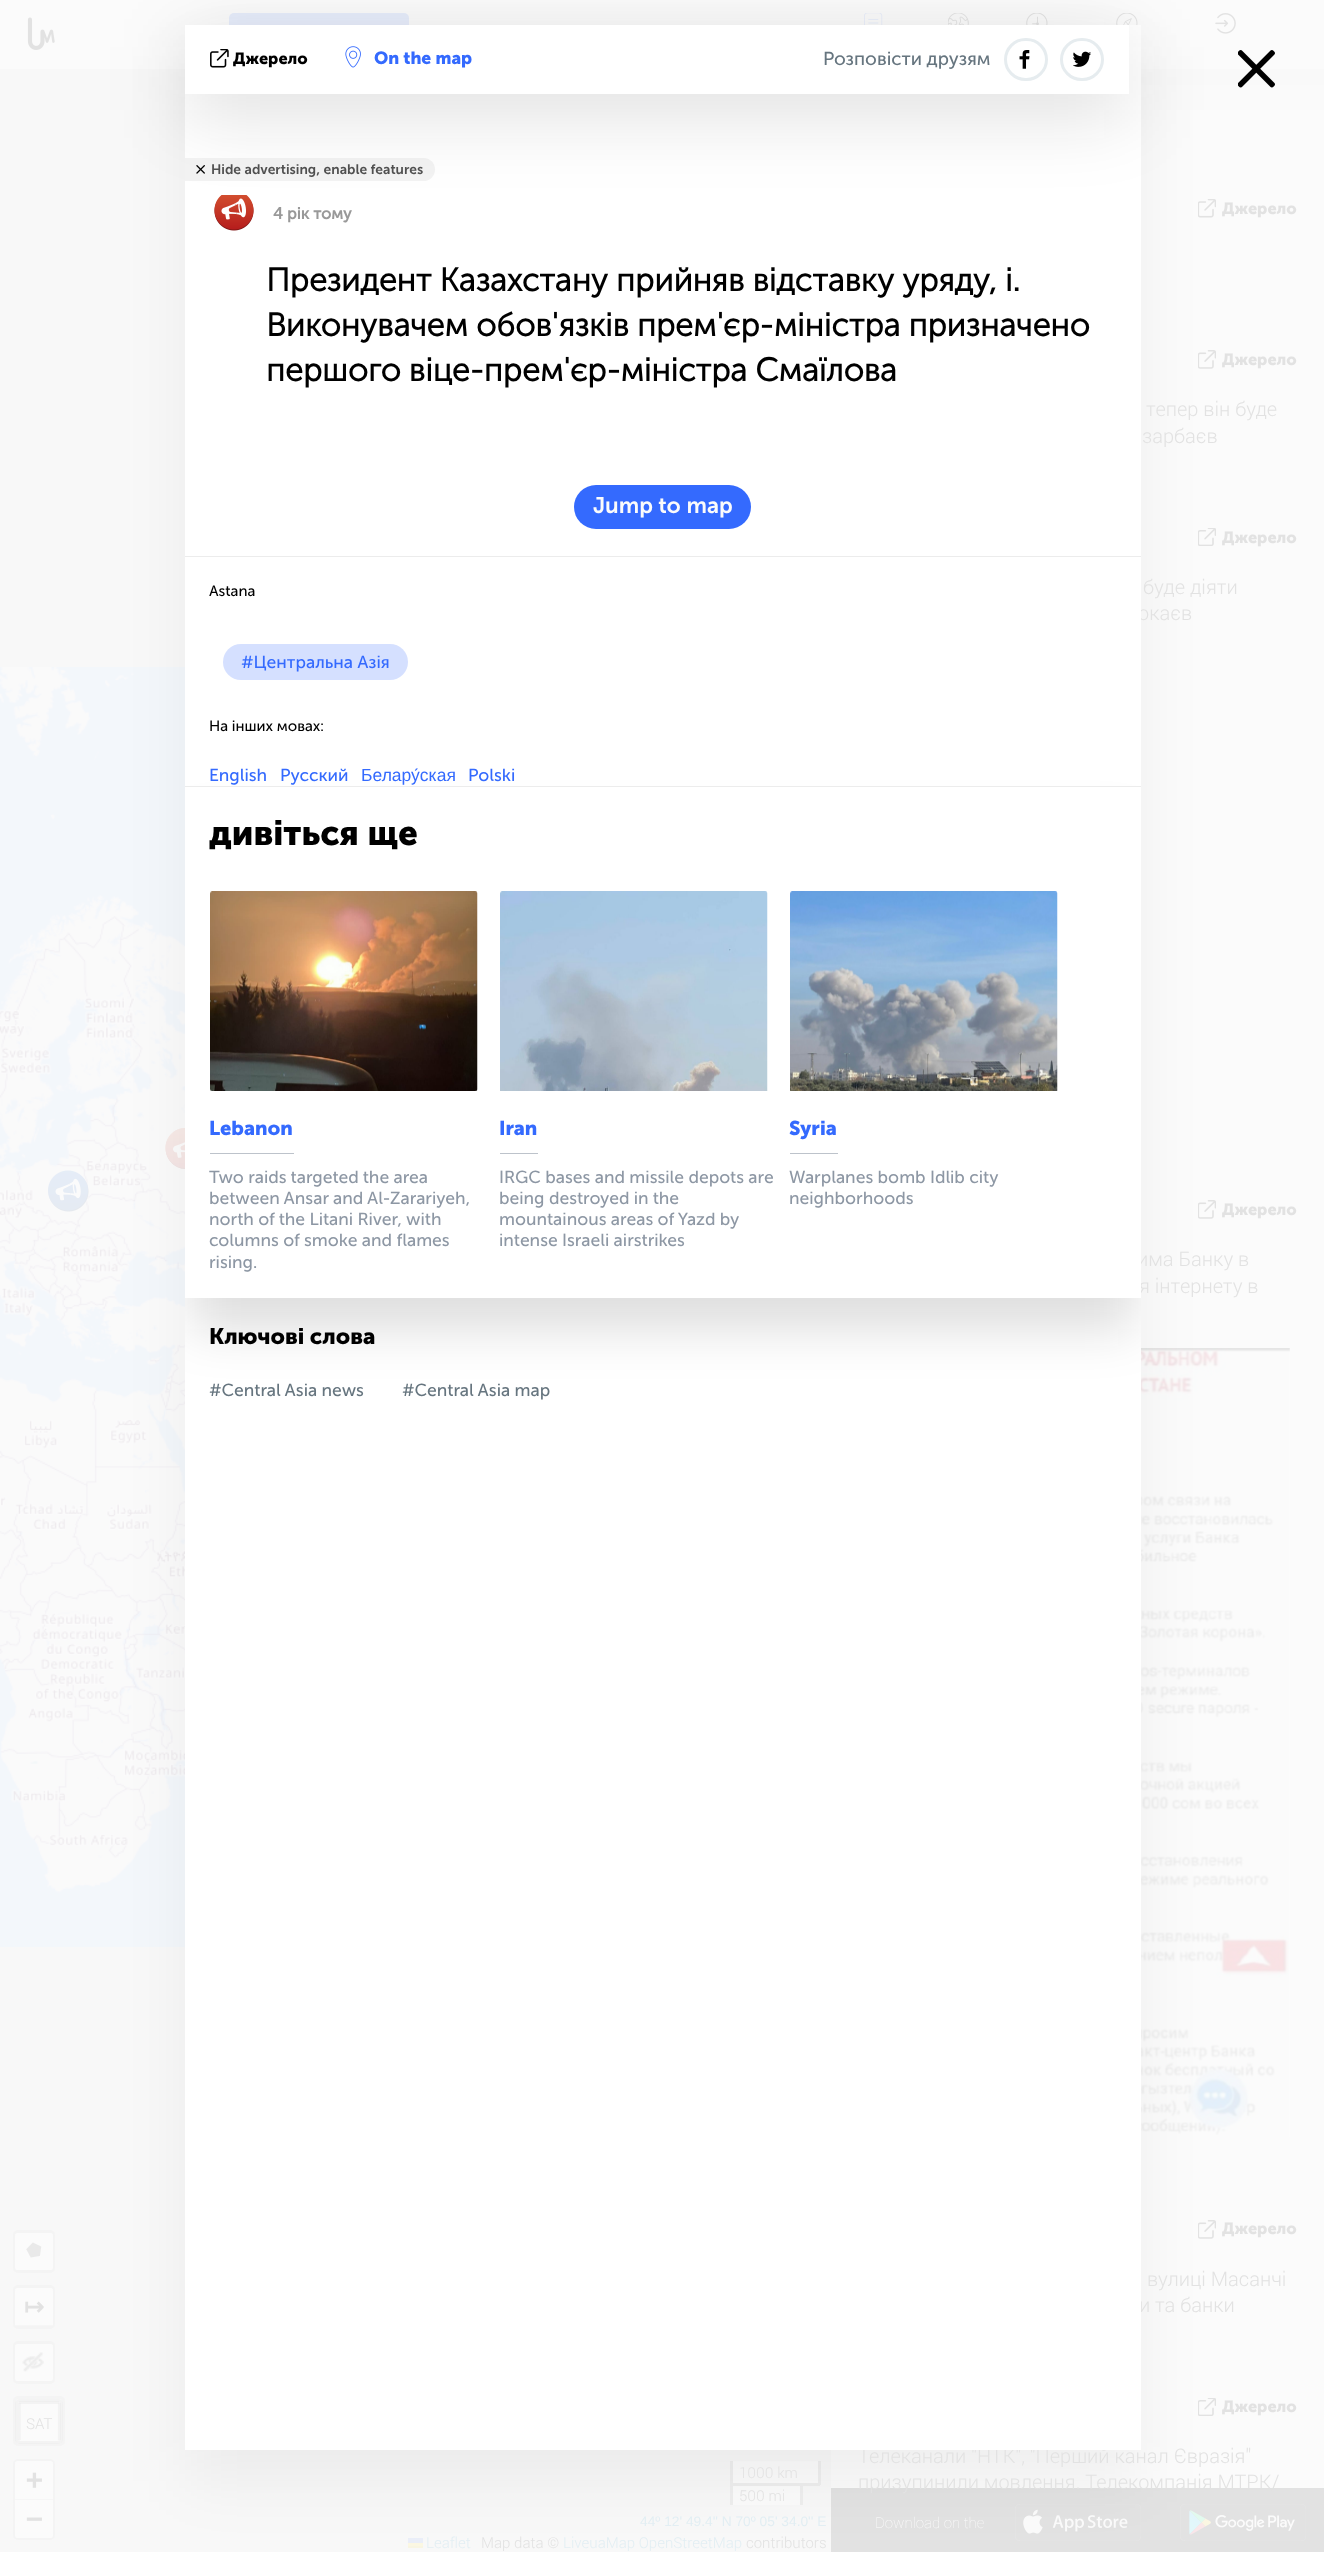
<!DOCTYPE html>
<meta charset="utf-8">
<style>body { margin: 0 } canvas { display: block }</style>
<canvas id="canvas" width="1324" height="2552"></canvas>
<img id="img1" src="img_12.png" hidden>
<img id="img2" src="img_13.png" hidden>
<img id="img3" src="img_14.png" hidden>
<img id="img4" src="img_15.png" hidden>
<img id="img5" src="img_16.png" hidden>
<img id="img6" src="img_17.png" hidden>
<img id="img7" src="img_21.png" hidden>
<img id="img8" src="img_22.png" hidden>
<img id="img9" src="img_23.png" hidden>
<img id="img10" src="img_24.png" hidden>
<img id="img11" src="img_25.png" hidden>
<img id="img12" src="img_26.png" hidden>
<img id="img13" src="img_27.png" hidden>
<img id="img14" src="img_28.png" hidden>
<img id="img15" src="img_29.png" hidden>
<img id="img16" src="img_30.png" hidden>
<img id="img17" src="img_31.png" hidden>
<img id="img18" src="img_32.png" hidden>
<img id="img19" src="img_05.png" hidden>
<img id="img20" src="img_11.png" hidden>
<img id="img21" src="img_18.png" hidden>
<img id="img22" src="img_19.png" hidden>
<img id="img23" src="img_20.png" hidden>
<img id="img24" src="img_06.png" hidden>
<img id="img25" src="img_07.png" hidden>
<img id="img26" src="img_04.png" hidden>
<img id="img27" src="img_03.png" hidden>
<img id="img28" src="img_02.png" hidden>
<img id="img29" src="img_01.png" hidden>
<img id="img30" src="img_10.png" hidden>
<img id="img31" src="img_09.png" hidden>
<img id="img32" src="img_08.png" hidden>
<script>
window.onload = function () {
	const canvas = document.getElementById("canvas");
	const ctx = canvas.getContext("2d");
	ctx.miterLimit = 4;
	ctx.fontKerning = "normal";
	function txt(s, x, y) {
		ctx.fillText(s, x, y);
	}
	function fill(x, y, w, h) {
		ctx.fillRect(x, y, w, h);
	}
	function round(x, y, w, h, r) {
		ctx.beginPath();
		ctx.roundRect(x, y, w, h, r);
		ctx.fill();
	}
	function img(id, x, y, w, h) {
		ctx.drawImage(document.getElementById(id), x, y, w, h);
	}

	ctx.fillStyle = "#F8F8F8";
	fill(0, 0, 1324, 2552);
	ctx.fillStyle = "#FBFBFB";
	fill(0, 0, 1324, 69);
	ctx.fillStyle = "#E7EDFB";
	round(229, 13, 180, 43, 5);
	ctx.fillStyle = "#FBFBFB";
	fill(733, 2486, 67, 19);
	img("img1", 0, 667, 185, 320);
	img("img2", 0, 987, 185, 320);
	img("img3", 0, 1307, 185, 320);
	img("img4", 0, 1627, 185, 320);
	img("img5", 165, 1128, 20, 41);
	img("img6", 165, 1128, 20, 41);
	fill(733, 2461, 85, 22);
	ctx.fillStyle = "#EEEEEE";
	fill(818, 2461, 3, 24);
	fill(803, 2483, 17, 3);
	fill(730, 2461, 3, 24);
	fill(730, 2483, 73, 3);
	fill(800, 2483, 3, 22);
	fill(730, 2483, 3, 22);
	ctx.fillStyle = "#EAEEF8";
	fill(408, 2538, 15, 5);
	ctx.fillStyle = "#FBF7E2";
	fill(408, 2543, 15, 3);
	ctx.fillStyle = "#F8F5E2";
	fill(408, 2546, 15, 2);
	ctx.fillStyle = "#FBFBFB";
	fill(831, 123, 493, 2365);
	img("img7", 864, 13, 19, 12);
	img("img8", 948, 13, 21, 12);
	img("img9", 1026, 13, 22, 12);
	img("img10", 1116, 13, 22, 12);
	img("img11", 1215, 13, 21, 21);
	img("img12", 1141, 69, 183, 54);
	img("img13", 1198, 199, 18, 19);
	img("img14", 1198, 350, 18, 19);
	img("img15", 1198, 528, 18, 18);
	img("img14", 1198, 1200, 18, 19);
	img("img16", 1141, 1348, 149, 789);
	img("img14", 1198, 2220, 18, 19);
	img("img15", 1198, 2398, 18, 18);
	ctx.fillStyle = "#E2E2E2";
	fill(831, 2488, 493, 64);
	img("img17", 1015, 2504, 126, 37);
	img("img18", 1180, 2504, 126, 37);
	ctx.fillStyle = "rgba(0, 0, 0, 0.05)";
	ctx.filter = "blur(31px)";
	ctx.beginPath();
	ctx.rect(185, 56, 956, 2425);
	ctx.fill();
	ctx.filter = "none";
	img("img19", 1238, 50, 37, 38);
	img("img20", 27, 17, 28, 33);
	img("img21", 48, 1170, 41, 42);
	ctx.beginPath();
	ctx.roundRect(14.5, 2231.5, 39, 40, 3.5);
	ctx.strokeStyle = "#F4F4F4";
	ctx.lineWidth = 3;
	ctx.stroke();
	ctx.fillStyle = "#FBFBFB";
	round(15, 2233, 38, 37, 2.5);
	img("img22", 26, 2242, 16, 16);
	ctx.beginPath();
	ctx.roundRect(14.5, 2286.5, 39, 41, 3.5);
	ctx.stroke();
	ctx.beginPath();
	ctx.roundRect(15, 2288, 38, 38, [2.5, 2.5, 0, 0]);
	ctx.fill();
	ctx.fillStyle = "#F6F6F6";
	fill(15, 2325, 38, 1);
	ctx.beginPath();
	ctx.roundRect(14.5, 2342.5, 39, 40, 3.5);
	ctx.stroke();
	ctx.fillStyle = "#FBFBFB";
	round(15, 2344, 38, 37, 2.5);
	img("img23", 22, 2352, 22, 20);
	ctx.beginPath();
	ctx.roundRect(14.5, 2397.5, 49, 47, 3.5);
	ctx.stroke();
	ctx.beginPath();
	ctx.roundRect(16.5, 2400.5, 45, 42, 3.5);
	ctx.strokeStyle = "rgba(226, 226, 226, 0.2)";
	ctx.stroke();
	ctx.beginPath();
	ctx.moveTo(20, 2404);
	ctx.lineTo(57.5, 2404);
	ctx.lineTo(57.5, 2441);
	ctx.lineTo(20, 2441);
	ctx.lineTo(20, 2439);
	ctx.closePath();
	ctx.fill();
	ctx.fillStyle = "rgba(226, 226, 226, 0.2)";
	fill(19, 2401, 40, 3);
	fill(58, 2403, 3, 37);
	fill(18, 2403, 3, 37);
	ctx.beginPath();
	ctx.roundRect(14.5, 2460.5, 39, 78, 3.5);
	ctx.strokeStyle = "#F4F4F4";
	ctx.stroke();
	ctx.fillStyle = "#FBFBFB";
	ctx.beginPath();
	ctx.roundRect(15, 2461, 38, 39, [2.5, 2.5, 0, 0]);
	ctx.fill();
	ctx.fillStyle = "#F6F6F6";
	fill(15, 2499, 38, 1);
	ctx.fillStyle = "#FBFBFB";
	ctx.beginPath();
	ctx.roundRect(15, 2500, 38, 38, [0, 0, 2.5, 2.5]);
	ctx.fill();
	ctx.font = "bold 24px DejaVu Sans";
	ctx.fillStyle = "#E2E2E2";
	txt("↦", 24, 2315);
	ctx.font = "300 15px Roboto";
	txt("SAT", 26, 2429);
	ctx.font = "bold 28px DejaVu Sans Mono";
	txt("+", 26, 2489);
	txt("−", 26, 2528);
	ctx.font = "300 15px Roboto";
	txt("1000 km", 739, 2478);
	txt("500 mi", 739, 2501);
	ctx.font = "13.75px Liberation Sans";
	ctx.fillStyle = "#E2EEF3";
	txt("44º 12' 49.4'' N 70º 05' 34.0'' E", 640, 2526);
	ctx.font = "300 15px Roboto";
	txt("Leaflet", 426, 2548);
	ctx.fillStyle = "#E2E2E2";
	txt("Map data ©", 481, 2548);
	ctx.fillStyle = "#E2EEF3";
	txt("LiveuaMap OpenStreetMap", 563, 2548);
	ctx.fillStyle = "#E2E2E2";
	txt("contributors", 746, 2548);
	ctx.font = "bold 16.25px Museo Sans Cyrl";
	txt("Джерело", 1222, 214);
	txt("Джерело", 1222, 365);
	ctx.font = "300 20px Roboto";
	txt("тепер він буде", 1146, 416);
	txt("зарбаєв", 1142, 443);
	ctx.font = "bold 16.25px Museo Sans Cyrl";
	txt("Джерело", 1222, 543);
	ctx.font = "300 20px Roboto";
	txt("буде діяти", 1143, 594);
	txt("окаєв", 1138, 620);
	ctx.font = "bold 16.25px Museo Sans Cyrl";
	txt("Джерело", 1222, 1215);
	ctx.font = "300 20px Roboto";
	txt("има Банку в", 1137, 1266);
	txt("я інтернету в", 1139, 1293);
	ctx.font = "bold 16.25px Museo Sans Cyrl";
	txt("Джерело", 1222, 2234);
	ctx.font = "300 20px Roboto";
	txt("вулиці Масанчі", 1147, 2286);
	txt("и та банки", 1139, 2312);
	ctx.font = "bold 16.25px Museo Sans Cyrl";
	txt("Джерело", 1222, 2412);
	ctx.font = "300 20px Roboto";
	txt("Телеканали \"НТК\", \"Перший канал Євразія\"", 858, 2463);
	ctx.fillStyle = "#FFFFFF";
	fill(185, 25, 956, 2425);
	ctx.fillStyle = "#F3F3F3";
	ctx.beginPath();
	ctx.roundRect(185, 158, 250, 23, [0, 11.5, 11.5, 0]);
	ctx.fill();
	img("img24", 196, 165, 9, 9);
	img("img25", 214, 195, 40, 36);
	ctx.fillStyle = "rgba(16, 15, 15, 0.14)";
	ctx.filter = "blur(37.5px)";
	ctx.beginPath();
	ctx.rect(185, 44, 944, 69);
	ctx.fill();
	ctx.filter = "none";
	ctx.fillStyle = "#FFFFFF";
	fill(185, 25, 944, 69);
	img("img26", 1073, 51, 18, 16);
	ctx.beginPath();
	ctx.roundRect(1061.5, 39.5, 41, 40, 20);
	ctx.strokeStyle = "#E6ECEF";
	ctx.stroke();
	img("img27", 1019, 50, 11, 19);
	ctx.beginPath();
	ctx.roundRect(1005.5, 39.5, 41, 40, 20);
	ctx.stroke();
	ctx.font = "18.75px Museo Sans Cyrl";
	ctx.fillStyle = "#66757F";
	txt("Розповісти друзям", 823, 65);
	img("img28", 345, 46, 16, 22);
	img("img29", 210, 49, 19, 19);
	ctx.font = "bold 17.5px Museo Sans Cyrl";
	ctx.fillStyle = "#346AFE";
	txt("On the map", 374, 64);
	ctx.font = "bold 16.25px Museo Sans Cyrl";
	ctx.fillStyle = "#000000";
	txt("Джерело", 233, 64);
	ctx.fillStyle = "#346AFE";
	round(574, 485, 177, 44, 22);
	ctx.font = "600 22.5px Museo Sans Cyrl";
	ctx.fillStyle = "#FBFBFB";
	txt("Jump to map", 593, 513);
	ctx.fillStyle = "#ECECEC";
	fill(185, 556, 956, 1);
	ctx.font = "bold 16.25px 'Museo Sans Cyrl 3'";
	ctx.fillStyle = "#999999";
	txt("4 рік тому", 273, 219);
	ctx.font = "600 13.75px Museo Sans Cyrl";
	ctx.fillStyle = "#505050";
	txt("Hide advertising, enable features", 211, 174);
	ctx.save();
	ctx.beginPath();
	ctx.rect(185, 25, 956, 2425);
	ctx.clip();
	ctx.beginPath();
	ctx.moveTo(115, 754);
	ctx.lineTo(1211, 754);
	ctx.lineTo(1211, 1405);
	ctx.lineTo(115, 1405);
	ctx.closePath();
	ctx.moveTo(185, 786);
	ctx.lineTo(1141, 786);
	ctx.lineTo(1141, 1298);
	ctx.lineTo(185, 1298);
	ctx.closePath();
	ctx.clip("evenodd");
	ctx.fillStyle = "rgba(16, 15, 15, 0.14)";
	ctx.filter = "blur(25px)";
	ctx.beginPath();
	ctx.rect(191, 830, 944, 499);
	ctx.fill();
	ctx.filter = "none";
	ctx.restore();
	img("img30", 790, 891, 268, 200);
	img("img31", 500, 891, 268, 200);
	img("img32", 210, 891, 268, 200);
	ctx.font = "17.5px Museo Sans Cyrl";
	ctx.fillStyle = "#66757F";
	txt("#Central Asia map", 402, 1396);
	txt("#Central Asia news", 209, 1396);
	ctx.font = "bold 22.5px Museo Sans Cyrl";
	ctx.fillStyle = "#000000";
	txt("Ключові слова", 209, 1344);
	ctx.font = "17.5px Museo Sans Cyrl";
	ctx.fillStyle = "#8D97A4";
	txt("neighborhoods", 789, 1204);
	txt("Warplanes bomb Idlib city", 789, 1183);
	ctx.font = "bold 20px Museo Sans Cyrl";
	ctx.fillStyle = "#346AFE";
	txt("Syria", 789, 1135);
	ctx.fillStyle = "#BDC3CB";
	fill(790, 1153, 48, 1);
	ctx.font = "17.5px Museo Sans Cyrl";
	ctx.fillStyle = "#8D97A4";
	txt("intense Israeli airstrikes", 499, 1246);
	txt("mountainous areas of Yazd by", 499, 1225);
	txt("being destroyed in the", 499, 1204);
	txt("IRGC bases and missile depots are", 499, 1183);
	ctx.font = "bold 20px Museo Sans Cyrl";
	ctx.fillStyle = "#346AFE";
	txt("Iran", 499, 1135);
	ctx.fillStyle = "#BDC3CB";
	fill(500, 1153, 38, 1);
	ctx.font = "17.5px Museo Sans Cyrl";
	ctx.fillStyle = "#8D97A4";
	txt("rising.", 209, 1268);
	txt("columns of smoke and flames", 209, 1246);
	txt("north of the Litani River, with", 209, 1225);
	txt("between Ansar and Al-Zarariyeh,", 209, 1204);
	txt("Two raids targeted the area", 209, 1183);
	ctx.font = "bold 20px Museo Sans Cyrl";
	ctx.fillStyle = "#346AFE";
	txt("Lebanon", 209, 1135);
	ctx.fillStyle = "#BDC3CB";
	fill(210, 1153, 84, 1);
	ctx.font = "bold 35px Museo Sans Cyrl";
	ctx.fillStyle = "#000000";
	txt("дивіться ще", 209, 845);
	ctx.font = "17.5px Museo Sans Cyrl";
	ctx.fillStyle = "#346AFE";
	txt("Polski", 468, 781);
	ctx.font = "17.5px Liberation Sans";
	txt("Белару́ская", 361, 781);
	ctx.font = "17.5px Museo Sans Cyrl";
	txt("Русский", 280, 781);
	txt("English", 209, 781);
	ctx.font = "15px Museo Sans Cyrl";
	ctx.fillStyle = "#000000";
	txt("На інших мовах:", 209, 731);
	ctx.fillStyle = "#D5E0FF";
	round(223, 644, 185, 36, 18);
	ctx.font = "17.5px Museo Sans Cyrl";
	ctx.fillStyle = "#346AFE";
	txt("#Центральна Азія", 241, 668);
	ctx.font = "15px Museo Sans Cyrl";
	ctx.fillStyle = "#000000";
	txt("Astana", 209, 596);
	ctx.font = "bold 32.5px 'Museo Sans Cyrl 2'";
	txt("першого віце-прем'єр-міністра Смаїлова", 266, 381);
	txt("Виконувачем обов'язків прем'єр-міністра призначено", 266, 336);
	txt("Президент Казахстану прийняв відставку уряду, і.", 266, 291);
	ctx.fillStyle = "#ECECEC";
	fill(185, 786, 956, 1);
	ctx.font = "300 20px Roboto";
	ctx.fillStyle = "#E2E2E2";
	txt("призупинили мовлення. Телекомпанія МТРК/", 858, 2489);
	ctx.font = "100 15px Roboto";
	ctx.fillStyle = "#FBFBFB";
	txt("Download on the", 875, 2528);
};
</script>
